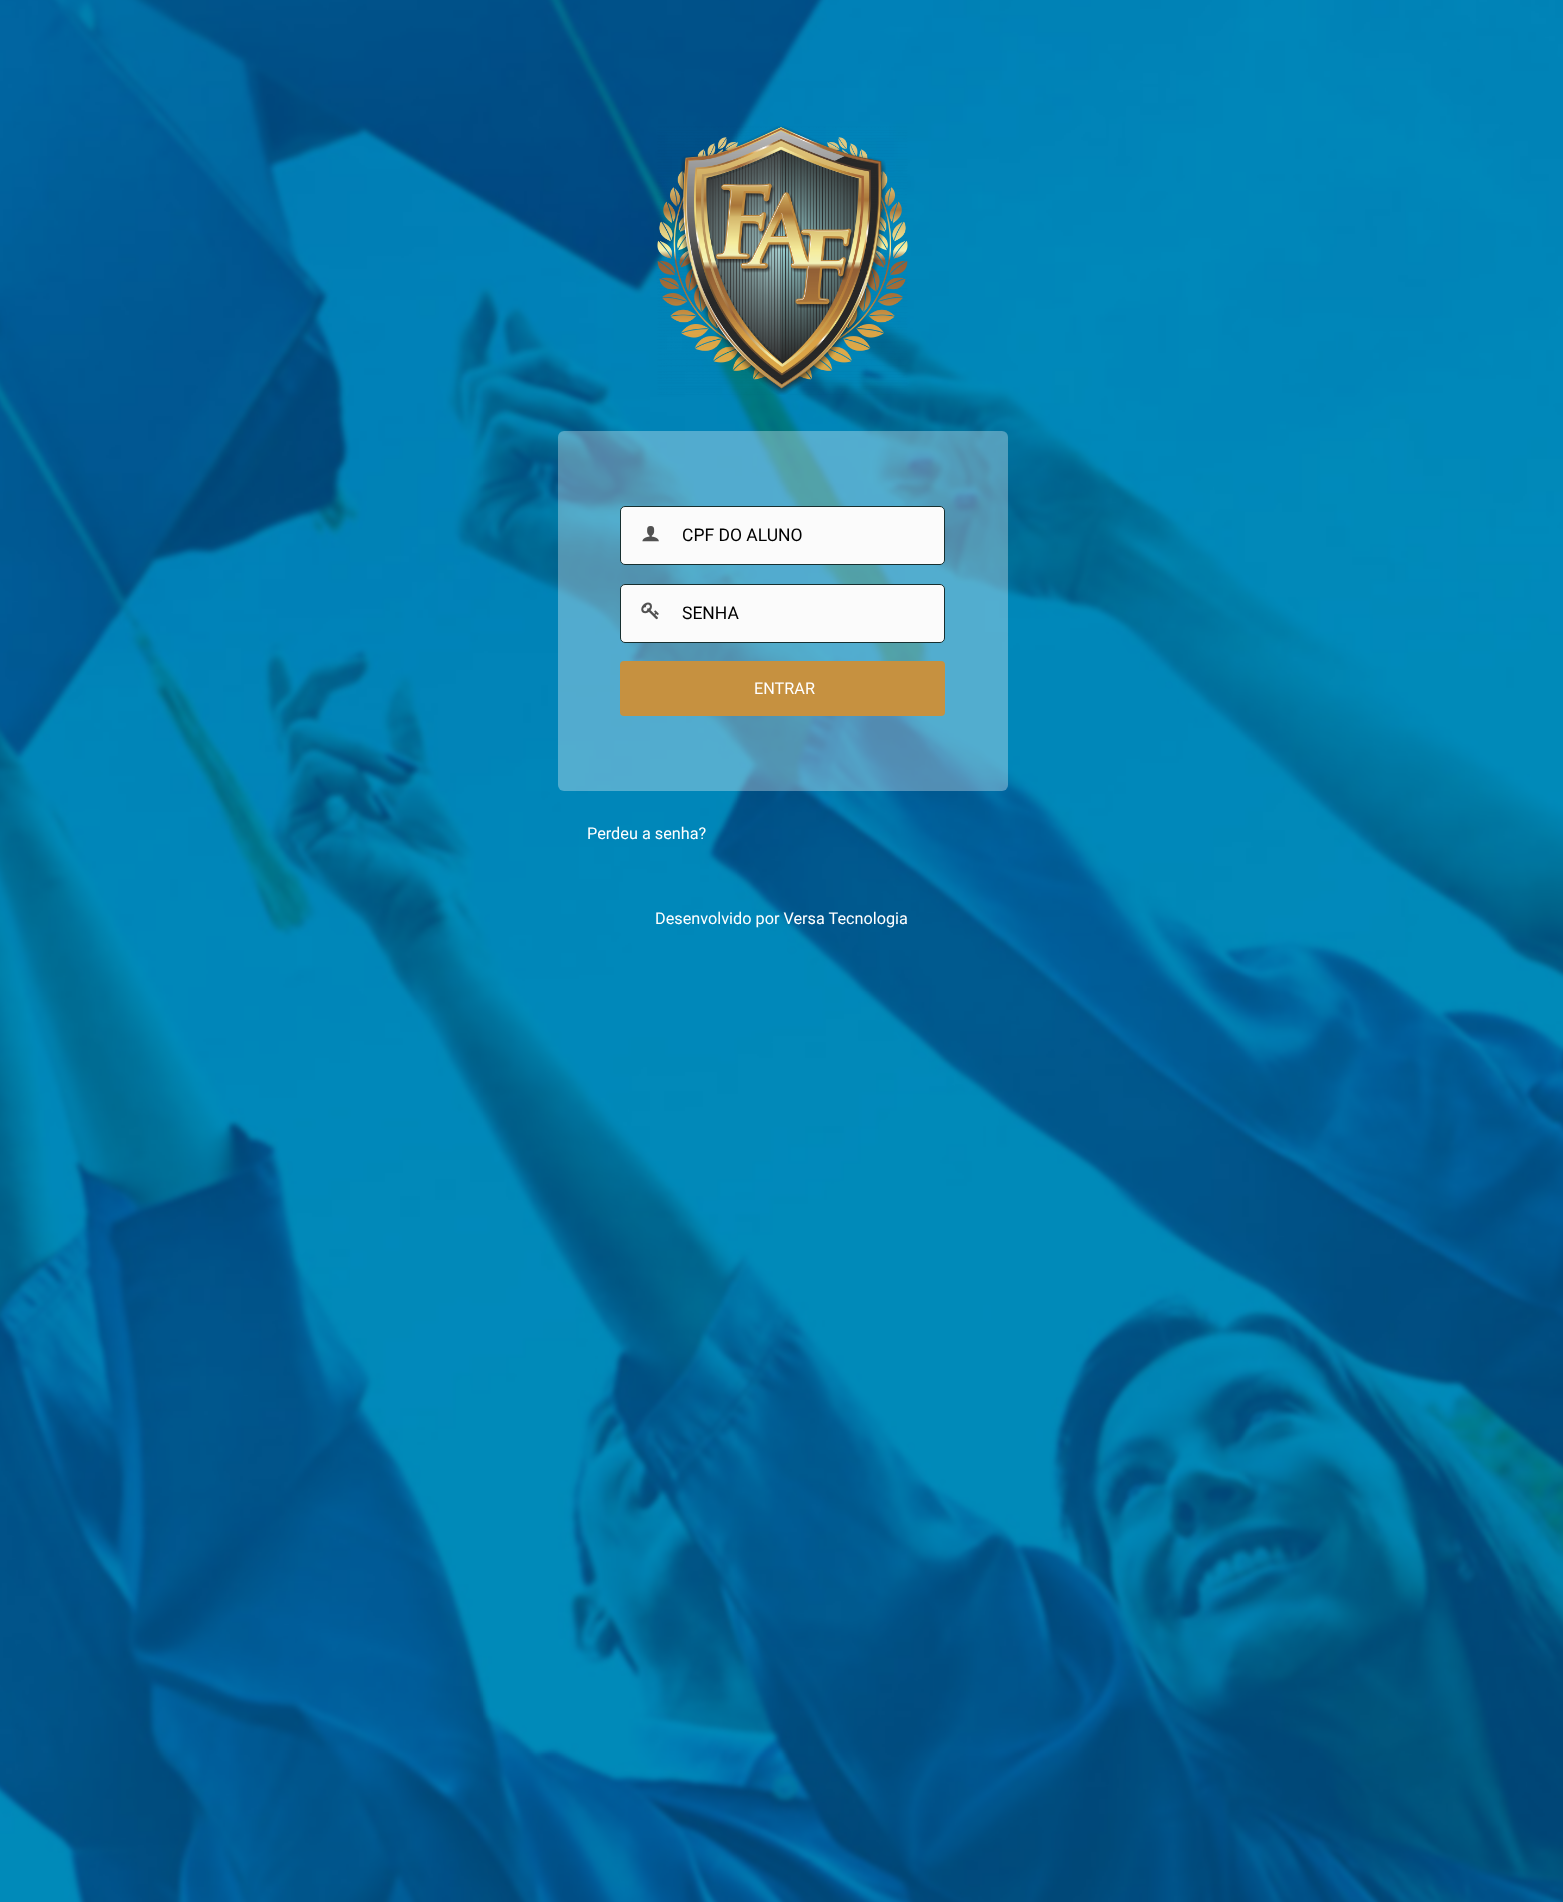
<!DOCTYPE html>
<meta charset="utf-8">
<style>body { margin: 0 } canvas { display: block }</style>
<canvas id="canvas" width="1563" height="1902"></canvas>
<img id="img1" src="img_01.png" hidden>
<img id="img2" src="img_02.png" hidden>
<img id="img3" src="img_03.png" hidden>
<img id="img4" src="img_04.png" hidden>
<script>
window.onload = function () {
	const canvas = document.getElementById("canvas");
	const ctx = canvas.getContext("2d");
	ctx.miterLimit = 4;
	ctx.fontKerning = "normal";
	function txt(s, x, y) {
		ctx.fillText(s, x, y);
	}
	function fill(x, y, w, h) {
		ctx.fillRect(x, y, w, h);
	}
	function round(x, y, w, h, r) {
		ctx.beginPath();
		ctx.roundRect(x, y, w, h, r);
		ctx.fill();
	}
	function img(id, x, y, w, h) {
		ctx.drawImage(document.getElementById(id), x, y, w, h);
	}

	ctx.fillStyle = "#FFFFFF";
	fill(0, 0, 1563, 1902);
	img("img1", 0, 0, 1563, 1902);
	img("img2", 657, 126, 251, 269);
	ctx.fillStyle = "rgba(255, 255, 255, 0.32)";
	round(558, 431, 450, 360, 6);
	ctx.fillStyle = "#FBFBFB";
	ctx.beginPath();
	ctx.roundRect(620.5, 506.5, 324, 58, 4.5);
	ctx.fill();
	ctx.strokeStyle = "#172F2F";
	ctx.stroke();
	img("img3", 642, 526, 17, 16);
	ctx.beginPath();
	ctx.roundRect(620.5, 584.5, 324, 58, 4.5);
	ctx.fill();
	ctx.stroke();
	img("img4", 641, 602, 18, 18);
	ctx.fillStyle = "#C69140";
	round(620, 661, 325, 55, 4);
	ctx.font = "17.5px Roboto";
	ctx.fillStyle = "#000000";
	txt("CPF DO ALUNO", 682, 541);
	txt("SENHA", 682, 619);
	ctx.font = "16.25px Roboto";
	ctx.fillStyle = "#FFFFFF";
	txt("ENTRAR", 754, 694);
	txt("Perdeu a senha?", 587, 839);
	txt("Desenvolvido por Versa Tecnologia", 655, 924);
};
</script>
